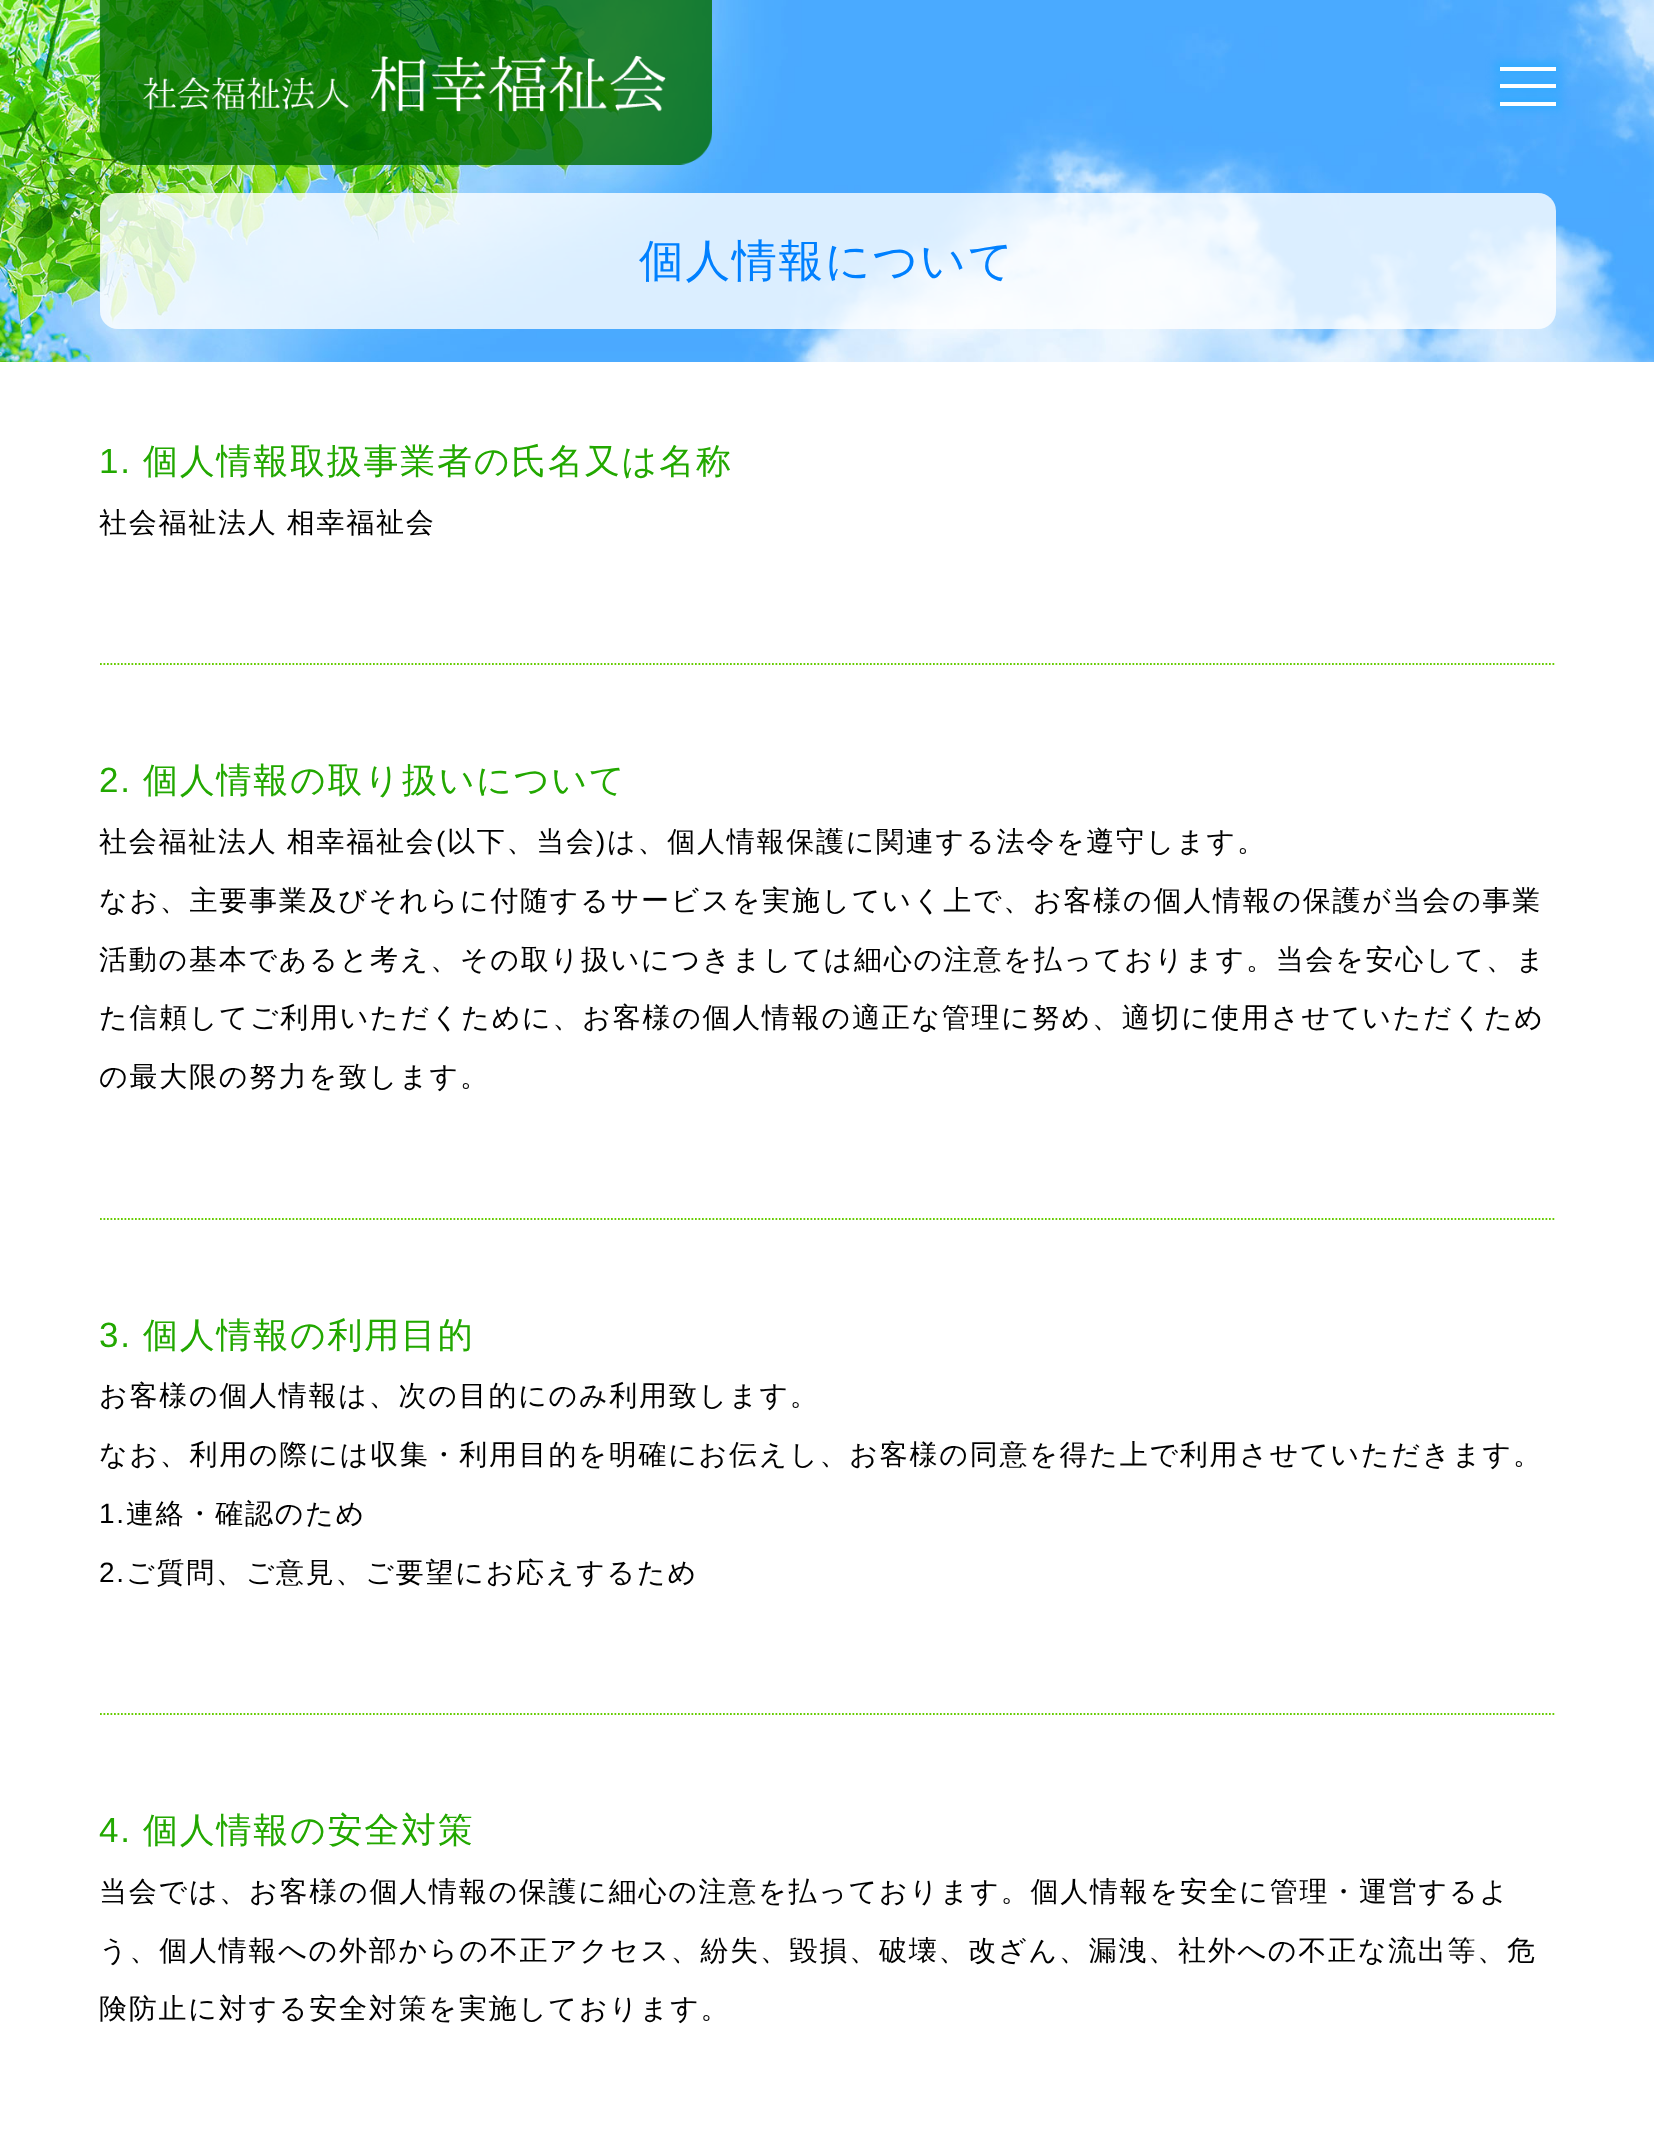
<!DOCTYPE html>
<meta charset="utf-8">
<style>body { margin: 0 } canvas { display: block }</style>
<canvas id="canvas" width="1654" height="2132"></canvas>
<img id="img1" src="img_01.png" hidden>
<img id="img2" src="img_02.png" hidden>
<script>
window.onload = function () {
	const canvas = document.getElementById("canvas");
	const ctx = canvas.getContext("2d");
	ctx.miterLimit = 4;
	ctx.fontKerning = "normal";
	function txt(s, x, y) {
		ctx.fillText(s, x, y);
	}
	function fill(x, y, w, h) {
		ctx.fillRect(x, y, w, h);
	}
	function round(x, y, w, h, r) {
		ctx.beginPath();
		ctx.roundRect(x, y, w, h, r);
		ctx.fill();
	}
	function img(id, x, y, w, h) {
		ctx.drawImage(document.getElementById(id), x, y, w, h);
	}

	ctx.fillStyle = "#FFFFFF";
	fill(0, 0, 1654, 2132);
	img("img1", 0, 0, 1654, 362);
	img("img2", 99, 0, 613, 165);
	ctx.fillStyle = "#33AAFF";
	ctx.filter = "blur(4.5px)";
	ctx.beginPath();
	ctx.rect(1495, 79, 66, 14);
	ctx.fill();
	ctx.filter = "none";
	ctx.fillStyle = "#FFFFFF";
	fill(1500, 84, 56, 4);
	ctx.fillStyle = "#33AAFF";
	ctx.filter = "blur(4.5px)";
	ctx.beginPath();
	ctx.rect(1495, 61, 66, 14);
	ctx.fill();
	ctx.filter = "none";
	ctx.fillStyle = "#FFFFFF";
	fill(1500, 67, 56, 4);
	ctx.fillStyle = "#33AAFF";
	ctx.filter = "blur(4.5px)";
	ctx.beginPath();
	ctx.rect(1495, 96, 66, 14);
	ctx.fill();
	ctx.filter = "none";
	ctx.fillStyle = "#FFFFFF";
	fill(1500, 102, 56, 4);
	ctx.fillStyle = "rgba(255, 255, 255, 0.8)";
	round(100, 193, 1456, 136, 18);
	ctx.beginPath();
	ctx.moveTo(100, 664);
	ctx.lineTo(1556, 664);
	ctx.strokeStyle = "#66CC00";
	ctx.lineWidth = 1.8;
	ctx.setLineDash([1.75, 1.75]);
	ctx.stroke();
	ctx.beginPath();
	ctx.moveTo(100, 1219);
	ctx.lineTo(1556, 1219);
	ctx.stroke();
	ctx.beginPath();
	ctx.moveTo(100, 1714);
	ctx.lineTo(1556, 1714);
	ctx.stroke();
	ctx.letterSpacing = "1.75px";
	ctx.font = "500 44.75px WenQuanYi Zen Hei";
	ctx.fillStyle = "#0080FF";
	txt("個人情報について", 639, 276);
	ctx.font = "35px Liberation Sans";
	ctx.fillStyle = "#22A800";
	txt("1.", 99, 473);
	ctx.font = "500 35px WenQuanYi Zen Hei";
	txt("個人情報取扱事業者の氏名又は名称", 143, 473);
	ctx.wordSpacing = "-1px";
	ctx.font = "500 28px WenQuanYi Zen Hei";
	ctx.fillStyle = "#000000";
	txt("社会福祉法人 相幸福祉会", 99, 532);
	ctx.wordSpacing = "0px";
	ctx.font = "35px Liberation Sans";
	ctx.fillStyle = "#22A800";
	txt("2.", 99, 792);
	ctx.font = "500 35px WenQuanYi Zen Hei";
	txt("個人情報の取り扱いについて", 143, 792);
	ctx.wordSpacing = "-1px";
	ctx.font = "500 28px WenQuanYi Zen Hei";
	ctx.fillStyle = "#000000";
	txt("社会福祉法人 相幸福祉会", 99, 851);
	ctx.wordSpacing = "0px";
	ctx.font = "28px Liberation Sans";
	txt("(", 436, 851);
	ctx.font = "500 28px WenQuanYi Zen Hei";
	txt("以下、当会", 447, 851);
	ctx.font = "28px Liberation Sans";
	txt(")", 596, 851);
	ctx.font = "500 28px WenQuanYi Zen Hei";
	txt("は、個人情報保護に関連する法令を遵守します。", 607, 851);
	txt("なお、主要事業及びそれらに付随するサービスを実施していく上で、お客様の個人情報の保護が当会の事業", 99, 910);
	txt("活動の基本であると考え、その取り扱いにつきましては細心の注意を払っております。当会を安心して、ま", 99, 969);
	txt("た信頼してご利用いただくために、お客様の個人情報の適正な管理に努め、適切に使用させていただくため", 99, 1027);
	txt("の最大限の努力を致します。", 99, 1086);
	ctx.font = "35px Liberation Sans";
	ctx.fillStyle = "#22A800";
	txt("3.", 99, 1347);
	ctx.font = "500 35px WenQuanYi Zen Hei";
	txt("個人情報の利用目的", 143, 1347);
	ctx.font = "500 28px WenQuanYi Zen Hei";
	ctx.fillStyle = "#000000";
	txt("お客様の個人情報は、次の目的にのみ利用致します。", 99, 1405);
	txt("なお、利用の際には収集・利用目的を明確にお伝えし、お客様の同意を得た上で利用させていただきます。", 99, 1464);
	ctx.font = "28px Liberation Sans";
	txt("1.", 99, 1523);
	ctx.font = "500 28px WenQuanYi Zen Hei";
	txt("連絡・確認のため", 126, 1523);
	ctx.font = "28px Liberation Sans";
	txt("2.", 99, 1582);
	ctx.font = "500 28px WenQuanYi Zen Hei";
	txt("ご質問、ご意見、ご要望にお応えするため", 126, 1582);
	ctx.font = "35px Liberation Sans";
	ctx.fillStyle = "#22A800";
	txt("4.", 99, 1842);
	ctx.font = "500 35px WenQuanYi Zen Hei";
	txt("個人情報の安全対策", 143, 1842);
	ctx.font = "500 28px WenQuanYi Zen Hei";
	ctx.fillStyle = "#000000";
	txt("当会では、お客様の個人情報の保護に細心の注意を払っております。個人情報を安全に管理・運営するよ", 99, 1901);
	txt("う、個人情報への外部からの不正アクセス、紛失、毀損、破壊、改ざん、漏洩、社外への不正な流出等、危", 99, 1960);
	txt("険防止に対する安全対策を実施しております。", 99, 2018);
};
</script>
